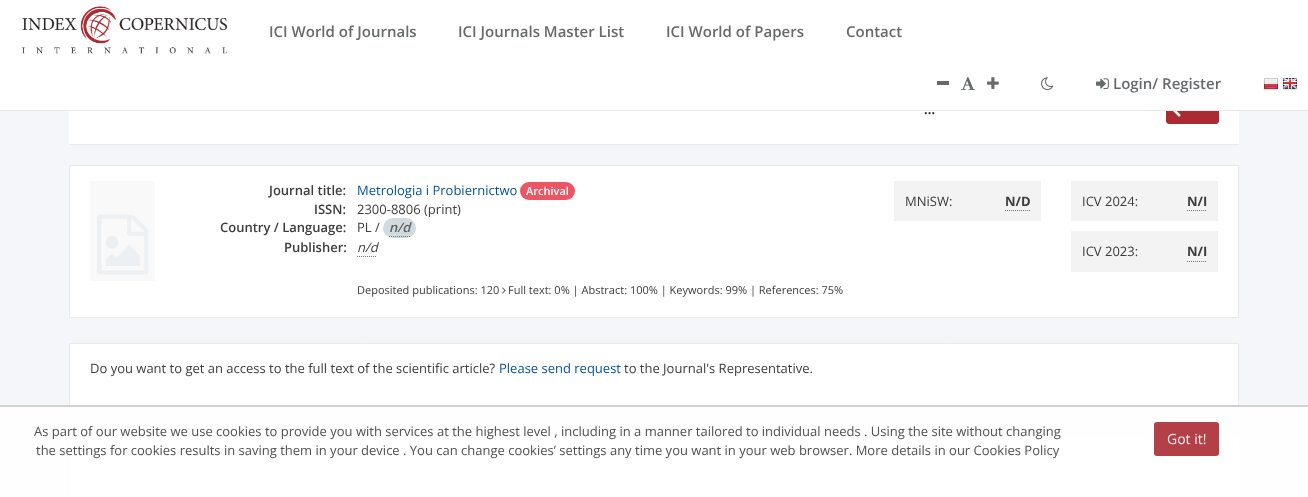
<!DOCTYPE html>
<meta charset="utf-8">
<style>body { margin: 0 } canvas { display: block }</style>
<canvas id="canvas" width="1308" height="497"></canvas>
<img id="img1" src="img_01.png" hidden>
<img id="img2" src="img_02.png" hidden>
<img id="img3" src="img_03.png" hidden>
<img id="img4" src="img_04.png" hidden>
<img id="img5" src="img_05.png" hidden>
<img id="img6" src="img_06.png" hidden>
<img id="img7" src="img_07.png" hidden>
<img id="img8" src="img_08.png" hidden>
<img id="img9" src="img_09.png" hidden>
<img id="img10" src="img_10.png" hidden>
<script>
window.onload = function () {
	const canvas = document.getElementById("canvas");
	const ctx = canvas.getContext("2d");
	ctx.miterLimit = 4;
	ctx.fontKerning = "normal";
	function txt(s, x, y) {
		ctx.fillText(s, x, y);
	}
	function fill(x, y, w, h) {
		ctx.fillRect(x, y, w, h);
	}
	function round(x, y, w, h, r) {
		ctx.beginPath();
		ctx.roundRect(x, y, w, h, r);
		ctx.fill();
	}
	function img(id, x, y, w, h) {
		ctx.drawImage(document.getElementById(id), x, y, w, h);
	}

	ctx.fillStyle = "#F4F6FA";
	fill(0, 0, 1308, 497);
	ctx.fillStyle = "#FFFFFF";
	fill(69, 111, 1170, 33);
	ctx.fillStyle = "#AA2B31";
	ctx.beginPath();
	ctx.roundRect(1166.5, 100.5, 52, 23, 2.5);
	ctx.fill();
	ctx.strokeStyle = "#AA2B31";
	ctx.stroke();
	ctx.fillStyle = "#FFFFFF";
	fill(0, 0, 1308, 110);
	ctx.fillStyle = "#E7EAEC";
	fill(0, 110, 1308, 1);
	img("img1", 22, 6, 206, 48);
	ctx.fillStyle = "#676A6C";
	fill(937, 81, 12, 4);
	img("img2", 961, 77, 14, 14);
	img("img3", 987, 77, 12, 12);
	img("img4", 1041, 77, 13, 14);
	img("img5", 1096, 78, 13, 11);
	img("img6", 1263, 78, 16, 13);
	img("img7", 1282, 78, 16, 13);
	ctx.fillStyle = "#E7EAEC";
	fill(69, 144, 1170, 1);
	img("img8", 1173, 111, 8, 6);
	ctx.fillStyle = "#FFFFFF";
	ctx.beginPath();
	ctx.rect(69.5, 165.5, 1169, 152);
	ctx.fill();
	ctx.strokeStyle = "#E7EAEC";
	ctx.stroke();
	ctx.fillStyle = "#F9F9F9";
	fill(90, 181, 65, 100);
	img("img9", 97, 214, 52, 61);
	ctx.fillStyle = "#ED5565";
	round(520, 182, 55, 18, 9);
	ctx.fillStyle = "#D1DADE";
	round(383, 218, 33, 20, 10);
	ctx.beginPath();
	ctx.moveTo(389, 236.5);
	ctx.lineTo(410, 236.5);
	ctx.strokeStyle = "#777777";
	ctx.setLineDash([1, 1]);
	ctx.stroke();
	ctx.beginPath();
	ctx.moveTo(357, 256.5);
	ctx.lineTo(377, 256.5);
	ctx.stroke();
	ctx.fillStyle = "#F3F3F4";
	fill(894, 181, 147, 40);
	ctx.beginPath();
	ctx.moveTo(1005, 210.5);
	ctx.lineTo(1030, 210.5);
	ctx.stroke();
	fill(1071, 181, 147, 40);
	ctx.beginPath();
	ctx.moveTo(1187, 210.5);
	ctx.lineTo(1207, 210.5);
	ctx.stroke();
	fill(1071, 231, 147, 41);
	ctx.beginPath();
	ctx.moveTo(1187, 261.5);
	ctx.lineTo(1207, 261.5);
	ctx.stroke();
	img("img10", 502, 287, 4, 7);
	ctx.fillStyle = "#FFFFFF";
	ctx.beginPath();
	ctx.rect(69.5, 343.5, 1169, 65);
	ctx.fill();
	ctx.strokeStyle = "#E7EAEC";
	ctx.setLineDash([]);
	ctx.stroke();
	fill(70, 435, 1168, 62);
	ctx.fillStyle = "#E7EAEC";
	fill(69, 434, 1170, 1);
	fill(1238, 434, 1, 63);
	fill(69, 434, 1, 63);
	ctx.fillStyle = "rgba(255, 255, 255, 0.9)";
	fill(0, 407, 1308, 90);
	ctx.fillStyle = "#D1D1D1";
	fill(0, 405, 1308, 2);
	ctx.fillStyle = "#B24046";
	round(1154, 422, 65, 34, 3);
	ctx.font = "600 15px Open Sans";
	ctx.fillStyle = "#676A6C";
	txt("ICI World of Journals", 269, 37);
	txt("ICI Journals Master List", 458, 37);
	txt("ICI World of Papers", 666, 37);
	txt("Contact", 846, 37);
	txt("Login/ Register", 1113, 89);
	ctx.font = "bold 13px Open Sans";
	ctx.fillStyle = "#3D3D3D";
	txt("…", 924, 114);
	ctx.font = "600 13px Open Sans";
	txt("Journal title:", 269, 195);
	ctx.font = "13px Open Sans";
	ctx.fillStyle = "#00539B";
	txt("Metrologia i Probiernictwo", 357, 195);
	ctx.font = "600 11px Open Sans";
	ctx.fillStyle = "#FFFFFF";
	txt("Archival", 526, 195);
	ctx.font = "600 13px Open Sans";
	ctx.fillStyle = "#3D3D3D";
	txt("ISSN:", 314, 214);
	ctx.font = "13px Open Sans";
	txt("2300-8806 (print)", 357, 214);
	ctx.font = "600 13px Open Sans";
	txt("Country / Language:", 220, 232);
	ctx.font = "13px Open Sans";
	txt("PL /", 357, 232);
	ctx.font = "italic 600 13px Open Sans";
	ctx.fillStyle = "#5E5E5E";
	txt("n/d", 389, 232);
	ctx.font = "600 13px Open Sans";
	ctx.fillStyle = "#3D3D3D";
	txt("Publisher:", 284, 252);
	ctx.font = "italic 13px Open Sans";
	txt("n/d", 357, 252);
	ctx.font = "13px Open Sans";
	txt("MNiSW:", 905, 206);
	ctx.font = "bold 13px Open Sans";
	txt("N/D", 1005, 206);
	ctx.font = "13px Open Sans";
	txt("ICV 2024:", 1082, 206);
	ctx.font = "bold 13px Open Sans";
	txt("N/I", 1187, 206);
	ctx.font = "13px Open Sans";
	txt("ICV 2023:", 1082, 256);
	ctx.font = "bold 13px Open Sans";
	txt("N/I", 1187, 256);
	ctx.font = "11px Open Sans";
	txt("Deposited publications: 120", 357, 294);
	txt("Full text: 0% | Abstract: 100% | Keywords: 99% | References: 75%", 508, 294);
	ctx.font = "13px Open Sans";
	txt("Do you want to get an access to the full text of the scientific article?", 90, 373);
	ctx.fillStyle = "#00539B";
	txt("Please send request", 499, 373);
	ctx.fillStyle = "#3D3D3D";
	txt("to the Journal's Representative.", 624, 373);
	ctx.fillStyle = "#505050";
	txt("As part of our website we use cookies to provide you with services at the highest level , including in a manner tailored to individual needs . Using the site without changing", 34, 436);
	txt("the settings for cookies results in saving them in your device . You can change cookies’ settings any time you want in your web browser. More details in our Cookies Policy", 36, 455);
	ctx.font = "14px Open Sans";
	ctx.fillStyle = "#F7ECED";
	txt("Got it!", 1167, 444);
};
</script>
